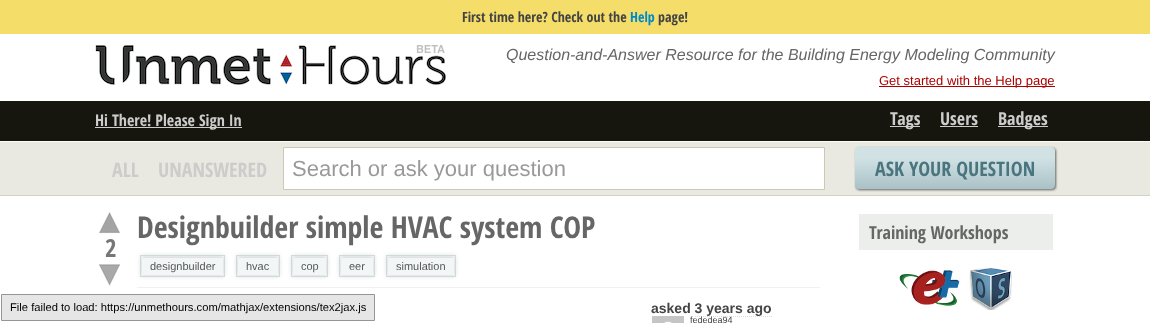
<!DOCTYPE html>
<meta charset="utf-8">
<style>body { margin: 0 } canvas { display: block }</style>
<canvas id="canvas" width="1150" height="323"></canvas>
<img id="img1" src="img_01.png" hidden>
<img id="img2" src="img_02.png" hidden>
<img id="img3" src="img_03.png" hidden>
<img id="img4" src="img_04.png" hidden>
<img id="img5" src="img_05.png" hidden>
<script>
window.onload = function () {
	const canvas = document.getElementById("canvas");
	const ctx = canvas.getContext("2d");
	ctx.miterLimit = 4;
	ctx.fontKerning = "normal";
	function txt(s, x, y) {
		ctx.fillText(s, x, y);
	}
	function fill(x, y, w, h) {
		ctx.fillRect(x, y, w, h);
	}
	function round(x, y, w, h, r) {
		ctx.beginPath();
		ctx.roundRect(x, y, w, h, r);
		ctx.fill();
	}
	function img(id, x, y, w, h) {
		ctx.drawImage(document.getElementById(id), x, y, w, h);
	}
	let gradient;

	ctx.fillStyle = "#FFFFFF";
	fill(0, 0, 1150, 323);
	ctx.fillStyle = "#F5DD69";
	fill(0, 0, 1150, 34);
	img("img1", 95, 45, 351, 40);
	ctx.fillStyle = "#AA0000";
	fill(879, 86, 176, 1);
	ctx.fillStyle = "#16160F";
	fill(0, 101, 1150, 40);
	ctx.fillStyle = "#CCCCCC";
	fill(95, 127, 147, 1);
	fill(890, 126, 30, 1);
	fill(940, 126, 38, 1);
	fill(998, 126, 50, 1);
	ctx.fillStyle = "#E9E9E1";
	fill(0, 142, 1150, 53);
	ctx.fillStyle = "#FCFCFC";
	fill(0, 141, 1150, 1);
	ctx.fillStyle = "#D3D3C2";
	fill(0, 195, 1150, 1);
	ctx.fillStyle = "#FFFFFF";
	ctx.beginPath();
	ctx.rect(283.5, 147.5, 541, 42);
	ctx.fill();
	ctx.strokeStyle = "#C9C9B5";
	ctx.stroke();
	ctx.fillStyle = "#636363";
	ctx.filter = "blur(1px)";
	ctx.beginPath();
	ctx.roundRect(856, 148, 200, 42, 4);
	ctx.fill();
	ctx.filter = "none";
	gradient = ctx.createLinearGradient(955, 147, 955, 189);
	gradient.addColorStop(0, "#D1E2E5");
	gradient.addColorStop(0.25, "#D1E2E5");
	gradient.addColorStop(1, "#A9C2C7");
	ctx.fillStyle = gradient;
	round(855, 147, 200, 42, 4);
	img("img2", 99, 212, 21, 22);
	img("img3", 98, 264, 22, 22);
	ctx.fillStyle = "#D3D6D7";
	ctx.filter = "blur(2.5px)";
	ctx.beginPath();
	ctx.rect(141, 256, 83, 20);
	ctx.fill();
	ctx.filter = "none";
	ctx.fillStyle = "#F3F6F6";
	fill(142, 258, 81, 17);
	ctx.strokeStyle = "#CFDBDB";
	ctx.strokeRect(140.5, 255.5, 84, 21);
	ctx.fillStyle = "#D3D6D7";
	ctx.filter = "blur(2.5px)";
	ctx.beginPath();
	ctx.rect(237, 256, 42, 20);
	ctx.fill();
	ctx.filter = "none";
	ctx.fillStyle = "#F3F6F6";
	fill(238, 258, 40, 17);
	ctx.strokeRect(236.5, 255.5, 43, 21);
	ctx.fillStyle = "#D3D6D7";
	ctx.filter = "blur(2.5px)";
	ctx.beginPath();
	ctx.rect(292, 256, 35, 20);
	ctx.fill();
	ctx.filter = "none";
	ctx.fillStyle = "#F3F6F6";
	fill(293, 258, 33, 17);
	ctx.strokeRect(291.5, 255.5, 36, 21);
	ctx.fillStyle = "#D3D6D7";
	ctx.filter = "blur(2.5px)";
	ctx.beginPath();
	ctx.rect(340, 256, 34, 20);
	ctx.fill();
	ctx.filter = "none";
	ctx.fillStyle = "#F3F6F6";
	fill(341, 258, 32, 17);
	ctx.strokeRect(339.5, 255.5, 35, 21);
	ctx.fillStyle = "#D3D6D7";
	ctx.filter = "blur(2.5px)";
	ctx.beginPath();
	ctx.rect(387, 256, 68, 20);
	ctx.fill();
	ctx.filter = "none";
	ctx.fillStyle = "#F3F6F6";
	fill(388, 258, 66, 17);
	ctx.strokeRect(386.5, 255.5, 69, 21);
	ctx.fillStyle = "#F0F0F0";
	fill(137, 287, 683, 1);
	ctx.beginPath();
	ctx.moveTo(695, 316.5);
	ctx.lineTo(772, 316.5);
	ctx.strokeStyle = "#DDDDDD";
	ctx.setLineDash([1, 1]);
	ctx.stroke();
	img("img4", 652, 316, 32, 7);
	ctx.fillStyle = "#ECEEEB";
	fill(859, 214, 194, 36);
	img("img5", 899, 267, 113, 43);
	ctx.fillStyle = "#E6E6E6";
	ctx.beginPath();
	ctx.rect(1.5, 294.5, 373, 26);
	ctx.fill();
	ctx.strokeStyle = "#959595";
	ctx.setLineDash([]);
	ctx.stroke();
	ctx.font = "bold 14px Open Sans Condensed";
	ctx.fillStyle = "#444444";
	txt("First time here? Check out the", 462, 22);
	ctx.fillStyle = "#0088CC";
	txt("Help", 630, 22);
	ctx.fillStyle = "#444444";
	txt("page!", 658, 22);
	ctx.font = "italic 16px Liberation Sans";
	ctx.fillStyle = "#666666";
	txt("Question-and-Answer Resource for the Building Energy Modeling Community", 506, 60);
	ctx.font = "13px Liberation Sans";
	ctx.fillStyle = "#AA0000";
	txt("Get started with the Help page", 879, 85);
	ctx.font = "bold 16px Open Sans Condensed";
	ctx.fillStyle = "#CCCCCC";
	txt("Hi There! Please Sign In", 95, 126);
	ctx.font = "bold 18px Open Sans Condensed";
	txt("Tags", 890, 125);
	txt("Users", 940, 125);
	txt("Badges", 998, 125);
	ctx.font = "bold 20px Open Sans Condensed";
	txt("ALL", 112, 177);
	txt("UNANSWERED", 158, 177);
	ctx.font = "22px Liberation Sans";
	ctx.fillStyle = "#999999";
	txt("Search or ask your question", 292, 176);
	ctx.font = "bold 20px Open Sans Condensed";
	ctx.fillStyle = "#4A757F";
	txt("ASK YOUR QUESTION", 875, 176);
	ctx.font = "bold 25px Open Sans Condensed";
	ctx.fillStyle = "#777777";
	txt("2", 105, 257);
	ctx.font = "bold 30px Open Sans Condensed";
	ctx.fillStyle = "#666666";
	txt("Designbuilder simple HVAC system COP", 137, 238);
	ctx.font = "11px Liberation Sans";
	ctx.fillStyle = "#585858";
	txt("designbuilder", 150, 270);
	txt("hvac", 246, 270);
	txt("cop", 301, 270);
	txt("eer", 349, 270);
	txt("simulation", 396, 270);
	ctx.font = "bold 14px Liberation Sans";
	ctx.fillStyle = "#444444";
	txt("asked 3 years ago", 651, 313);
	ctx.font = "9px Liberation Sans";
	txt("fededea94", 690, 323);
	ctx.font = "bold 18px Open Sans Condensed";
	ctx.fillStyle = "#666666";
	txt("Training Workshops", 869, 239);
	ctx.font = "11.2px Liberation Sans";
	ctx.fillStyle = "#000000";
	txt("File failed to load: https://unmethours.com/mathjax/extensions/tex2jax.js", 10, 311);
};
</script>
